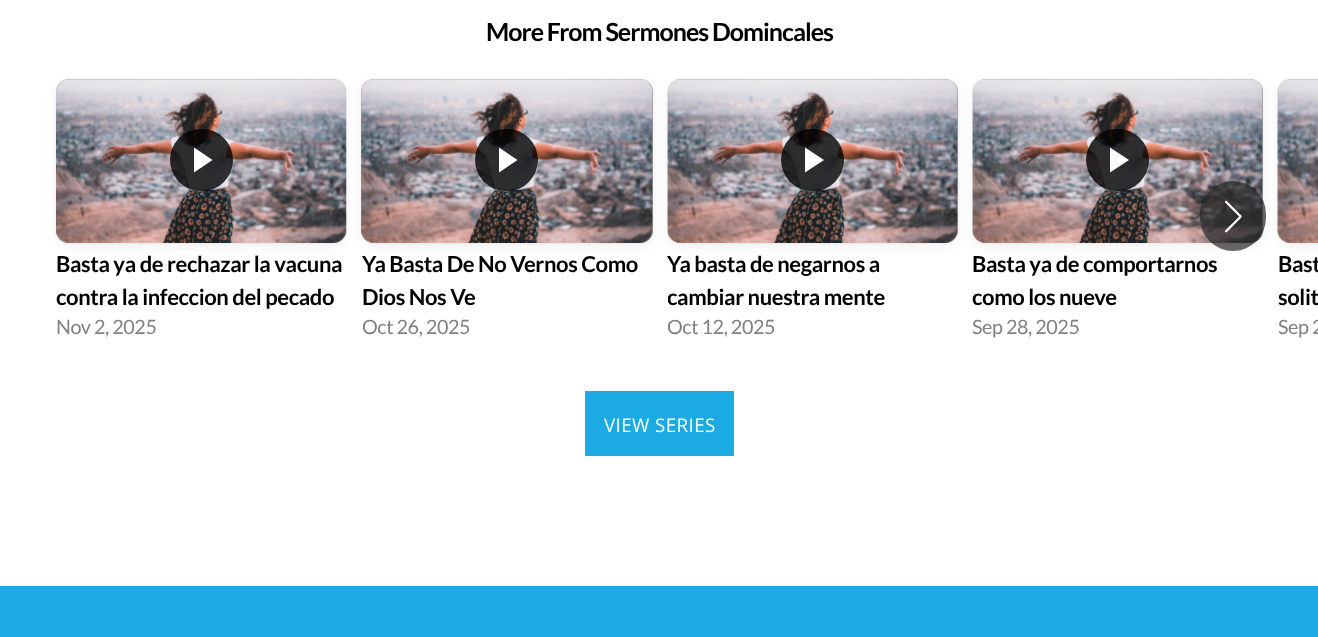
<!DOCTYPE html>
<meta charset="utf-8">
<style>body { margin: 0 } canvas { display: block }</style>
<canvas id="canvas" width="1318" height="637"></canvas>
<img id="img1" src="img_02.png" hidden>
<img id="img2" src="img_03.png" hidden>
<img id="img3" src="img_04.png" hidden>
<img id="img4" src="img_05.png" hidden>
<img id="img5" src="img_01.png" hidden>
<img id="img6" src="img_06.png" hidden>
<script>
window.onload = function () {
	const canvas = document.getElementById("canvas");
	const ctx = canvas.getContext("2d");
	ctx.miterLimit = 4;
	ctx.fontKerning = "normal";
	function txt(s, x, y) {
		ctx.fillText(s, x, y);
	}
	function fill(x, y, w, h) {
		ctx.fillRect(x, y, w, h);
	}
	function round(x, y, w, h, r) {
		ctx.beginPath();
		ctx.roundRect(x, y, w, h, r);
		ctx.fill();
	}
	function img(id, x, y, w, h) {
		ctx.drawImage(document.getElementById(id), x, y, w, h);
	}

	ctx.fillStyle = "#FFFFFF";
	fill(0, 0, 1318, 637);
	ctx.fillStyle = "rgba(0, 0, 0, 0.04)";
	ctx.filter = "blur(1px)";
	ctx.beginPath();
	ctx.roundRect(973, 80, 290, 164, 13);
	ctx.fill();
	ctx.filter = "none";
	ctx.filter = "blur(1px)";
	ctx.beginPath();
	ctx.roundRect(56, 80, 290, 164, 13);
	ctx.fill();
	ctx.filter = "none";
	ctx.fillStyle = "rgba(0, 0, 0, 0.06)";
	ctx.filter = "blur(6px)";
	ctx.beginPath();
	ctx.roundRect(56, 83, 290, 163, 13);
	ctx.fill();
	ctx.filter = "none";
	ctx.fillStyle = "#A29899";
	round(56, 79, 290, 164, 13);
	img("img1", 56, 78, 291, 165);
	ctx.fillStyle = "rgba(0, 0, 0, 0.06)";
	ctx.filter = "blur(6px)";
	ctx.beginPath();
	ctx.roundRect(361, 83, 292, 163, 13);
	ctx.fill();
	ctx.filter = "none";
	ctx.fillStyle = "rgba(0, 0, 0, 0.04)";
	ctx.filter = "blur(1px)";
	ctx.beginPath();
	ctx.roundRect(668, 80, 290, 164, 13);
	ctx.fill();
	ctx.filter = "none";
	ctx.filter = "blur(1px)";
	ctx.beginPath();
	ctx.roundRect(361, 80, 292, 164, 13);
	ctx.fill();
	ctx.filter = "none";
	ctx.fillStyle = "#A29899";
	round(361, 79, 292, 164, 13);
	img("img2", 361, 78, 292, 165);
	ctx.fillStyle = "rgba(0, 0, 0, 0.06)";
	ctx.filter = "blur(6px)";
	ctx.beginPath();
	ctx.roundRect(668, 83, 290, 163, 13);
	ctx.fill();
	ctx.filter = "none";
	ctx.fillStyle = "#A29899";
	round(668, 79, 290, 164, 13);
	img("img3", 667, 78, 291, 165);
	ctx.fillStyle = "rgba(0, 0, 0, 0.06)";
	ctx.filter = "blur(6px)";
	ctx.beginPath();
	ctx.roundRect(973, 83, 290, 163, 13);
	ctx.fill();
	ctx.filter = "none";
	ctx.fillStyle = "#A29899";
	round(973, 79, 290, 164, 13);
	img("img4", 972, 78, 291, 165);
	ctx.fillStyle = "rgba(0, 0, 0, 0.06)";
	ctx.filter = "blur(6px)";
	ctx.beginPath();
	ctx.roundRect(1278, 83, 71, 163, 13);
	ctx.fill();
	ctx.filter = "none";
	ctx.fillStyle = "rgba(40, 40, 40, 0.7)";
	round(1200, 181, 66, 70, 33);
	img("img5", 1224, 200, 18, 33);
	ctx.fillStyle = "rgba(0, 0, 0, 0.8)";
	round(170, 129, 63, 62, 31);
	ctx.fillStyle = "#FFFFFF";
	ctx.beginPath();
	ctx.moveTo(194, 172.5);
	ctx.lineTo(194, 147.5);
	ctx.lineTo(212.5, 160);
	ctx.closePath();
	ctx.fill();
	ctx.fillStyle = "rgba(0, 0, 0, 0.8)";
	round(475, 129, 63, 62, 31);
	ctx.fillStyle = "#FFFFFF";
	ctx.beginPath();
	ctx.moveTo(499, 172.5);
	ctx.lineTo(499, 147.5);
	ctx.lineTo(517.5, 160);
	ctx.closePath();
	ctx.fill();
	ctx.fillStyle = "rgba(0, 0, 0, 0.8)";
	round(781, 129, 63, 62, 31);
	ctx.fillStyle = "#FFFFFF";
	ctx.beginPath();
	ctx.moveTo(805, 172.5);
	ctx.lineTo(805, 147.5);
	ctx.lineTo(824, 160);
	ctx.closePath();
	ctx.fill();
	ctx.fillStyle = "rgba(0, 0, 0, 0.8)";
	round(1086, 129, 63, 62, 31);
	ctx.fillStyle = "#FFFFFF";
	ctx.beginPath();
	ctx.moveTo(1110, 172.5);
	ctx.lineTo(1110, 147.5);
	ctx.lineTo(1129, 160);
	ctx.closePath();
	ctx.fill();
	ctx.fillStyle = "rgba(0, 0, 0, 0.04)";
	ctx.filter = "blur(1px)";
	ctx.beginPath();
	ctx.roundRect(1278, 80, 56, 164, 13);
	ctx.fill();
	ctx.filter = "none";
	ctx.fillStyle = "#A29899";
	ctx.beginPath();
	ctx.moveTo(1291, 79);
	ctx.lineTo(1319, 79);
	ctx.lineTo(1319, 243);
	ctx.lineTo(1291, 243);
	ctx.bezierCurveTo(1284, 243, 1278, 237, 1278, 230);
	ctx.lineTo(1278, 92);
	ctx.bezierCurveTo(1278, 85, 1284, 79, 1291, 79);
	ctx.closePath();
	ctx.fill();
	img("img6", 1277, 79, 41, 164);
	ctx.fillStyle = "#1BABE2";
	fill(585, 391, 149, 65);
	fill(0, 586, 1318, 51);
	ctx.letterSpacing = "-1px";
	ctx.font = "bold 25px Lato";
	ctx.fillStyle = "#000000";
	txt("More From Sermones Domincales", 486, 41);
	ctx.letterSpacing = "-0.4px";
	ctx.font = "bold 22px Lato";
	txt("Basta ya de rechazar la vacuna", 56, 272);
	txt("contra la infeccion del pecado", 56, 305);
	ctx.font = "19.75px Lato";
	ctx.fillStyle = "#808080";
	txt("Nov 2, 2025", 56, 334);
	ctx.font = "bold 22px Lato";
	ctx.fillStyle = "#000000";
	txt("Ya Basta De No Vernos Como", 362, 272);
	txt("Dios Nos Ve", 362, 305);
	ctx.font = "19.75px Lato";
	ctx.fillStyle = "#808080";
	txt("Oct 26, 2025", 362, 334);
	ctx.font = "bold 22px Lato";
	ctx.fillStyle = "#000000";
	txt("Ya basta de negarnos a", 667, 272);
	ctx.save();
	ctx.beginPath();
	ctx.rect(668, 249, 290, 65);
	ctx.clip();
	txt("cambiar nuestra mente", 667, 305);
	ctx.restore();
	ctx.save();
	ctx.beginPath();
	ctx.rect(668, 314, 107, 26);
	ctx.clip();
	ctx.font = "19.75px Lato";
	ctx.fillStyle = "#808080";
	txt("Oct 12, 2025", 667, 334);
	ctx.restore();
	txt("Basta ya de comportarnos", 972, 272);
	txt("como los nueve", 972, 305);
	ctx.font = "19.75px Lato";
	ctx.fillStyle = "#808080";
	txt("Sep 28, 2025", 972, 334);
	ctx.font = "bold 22px Lato";
	ctx.fillStyle = "#000000";
	txt("Bast", 1278, 272);
	txt("solit", 1278, 305);
	ctx.font = "19.75px Lato";
	ctx.fillStyle = "#808080";
	txt("Sep 2", 1278, 334);
	ctx.letterSpacing = "0.4px";
	ctx.font = "18.75px Open Sans";
	ctx.fillStyle = "#FFFFFF";
	txt("VIEW SERIES", 604, 432);
};
</script>
